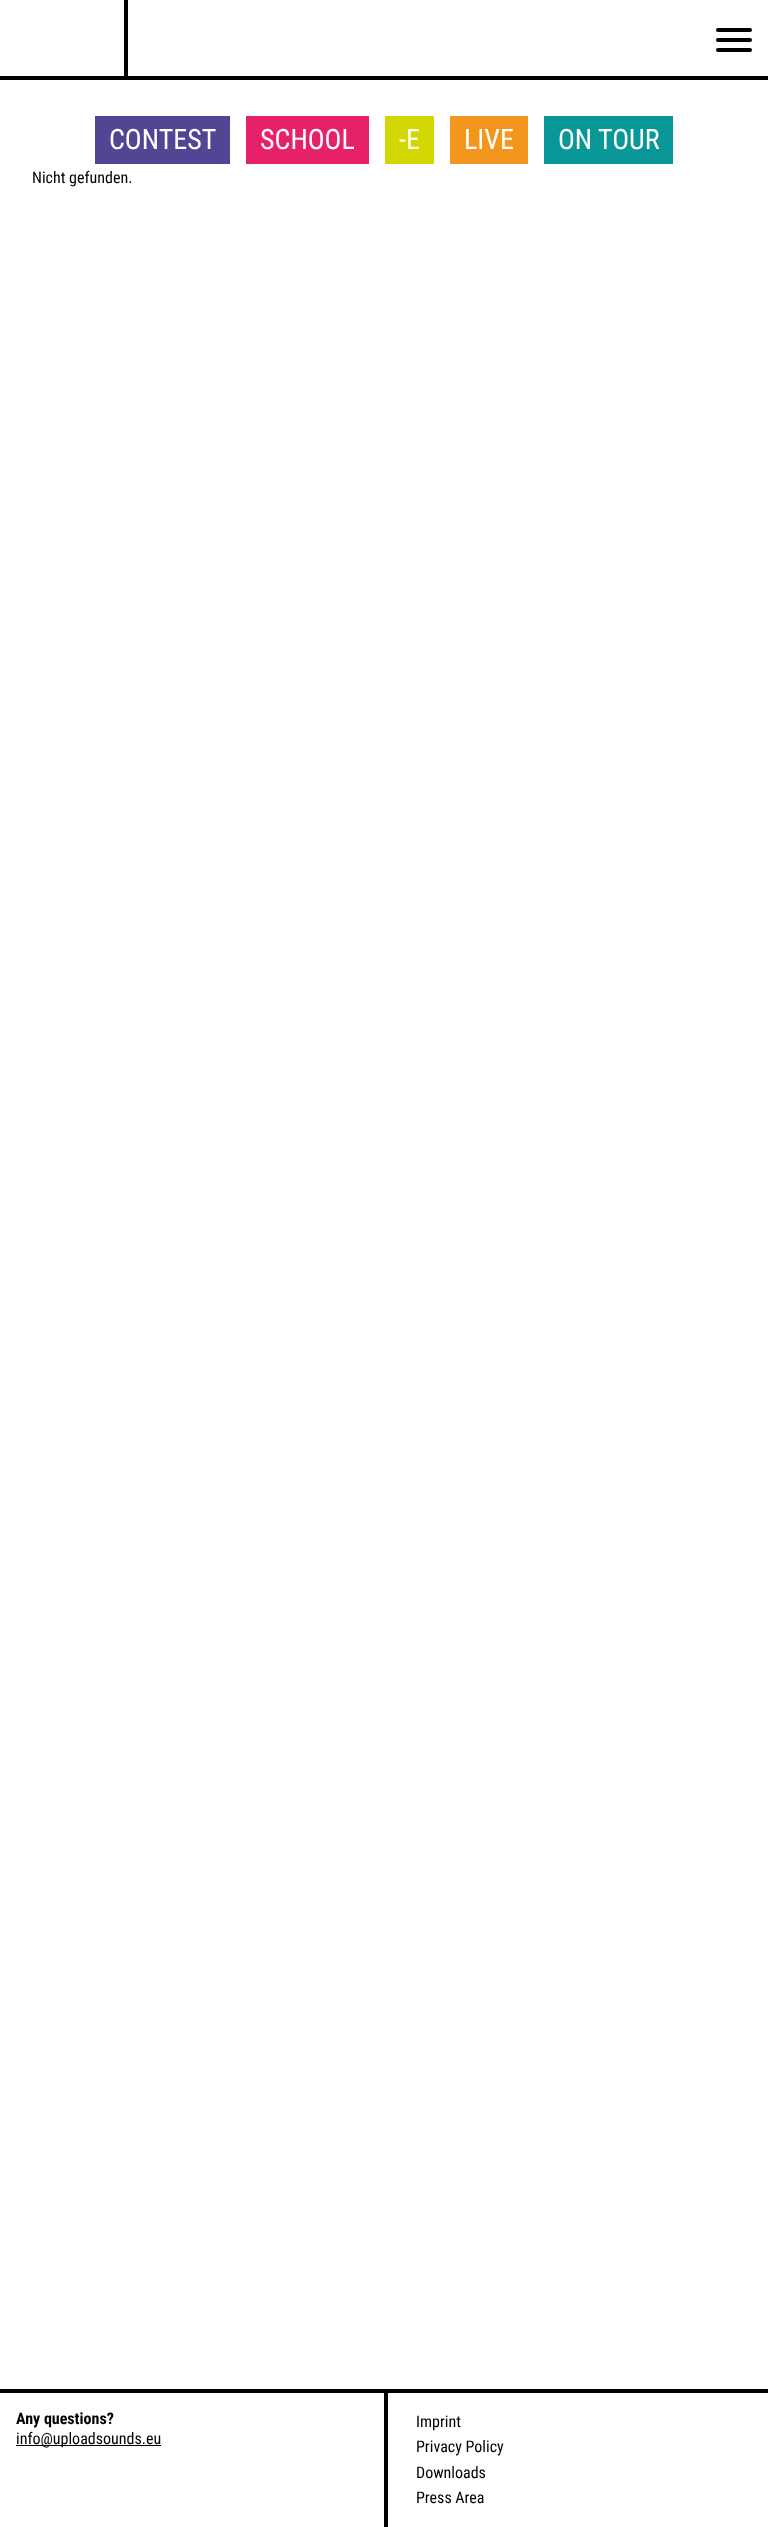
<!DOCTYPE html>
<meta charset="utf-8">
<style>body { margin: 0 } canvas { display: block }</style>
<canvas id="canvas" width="768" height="2527"></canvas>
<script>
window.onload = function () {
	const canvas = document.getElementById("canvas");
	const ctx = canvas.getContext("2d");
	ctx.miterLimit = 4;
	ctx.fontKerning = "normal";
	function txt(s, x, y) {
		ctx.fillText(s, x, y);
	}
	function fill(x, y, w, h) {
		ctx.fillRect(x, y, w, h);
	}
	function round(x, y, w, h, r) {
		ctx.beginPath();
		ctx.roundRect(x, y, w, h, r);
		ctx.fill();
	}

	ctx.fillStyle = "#FFFFFF";
	fill(0, 0, 768, 2527);
	ctx.fillStyle = "#000000";
	fill(124, 0, 4, 80);
	round(716, 38, 36, 4, 2);
	round(716, 28, 36, 4, 2);
	round(716, 48, 36, 4, 2);
	fill(0, 76, 768, 4);
	ctx.fillStyle = "#544594";
	fill(95, 116, 135, 48);
	ctx.fillStyle = "#E62169";
	fill(246, 116, 123, 48);
	ctx.fillStyle = "#D3D802";
	fill(385, 116, 49, 48);
	ctx.fillStyle = "#F2961D";
	fill(450, 116, 78, 48);
	ctx.fillStyle = "#099798";
	fill(544, 116, 129, 48);
	ctx.fillStyle = "#000000";
	fill(0, 2389, 768, 4);
	fill(16, 2445, 145, 1);
	fill(384, 2393, 4, 134);
	ctx.font = "28px Roboto Condensed";
	ctx.fillStyle = "#FFFFFF";
	txt("CONTEST", 109, 149);
	txt("SCHOOL", 260, 149);
	txt("-E", 399, 149);
	txt("LIVE", 464, 149);
	txt("ON TOUR", 558, 149);
	ctx.font = "16px Roboto Condensed";
	ctx.fillStyle = "#000000";
	txt("Nicht gefunden.", 32, 183);
	ctx.font = "bold 16px Roboto Condensed";
	txt("Any questions?", 16, 2424);
	ctx.font = "16px Roboto Condensed";
	txt("info@uploadsounds.eu", 16, 2444);
	txt("Imprint", 416, 2427);
	txt("Privacy Policy", 416, 2452);
	txt("Downloads", 416, 2478);
	txt("Press Area", 416, 2503);
};
</script>
